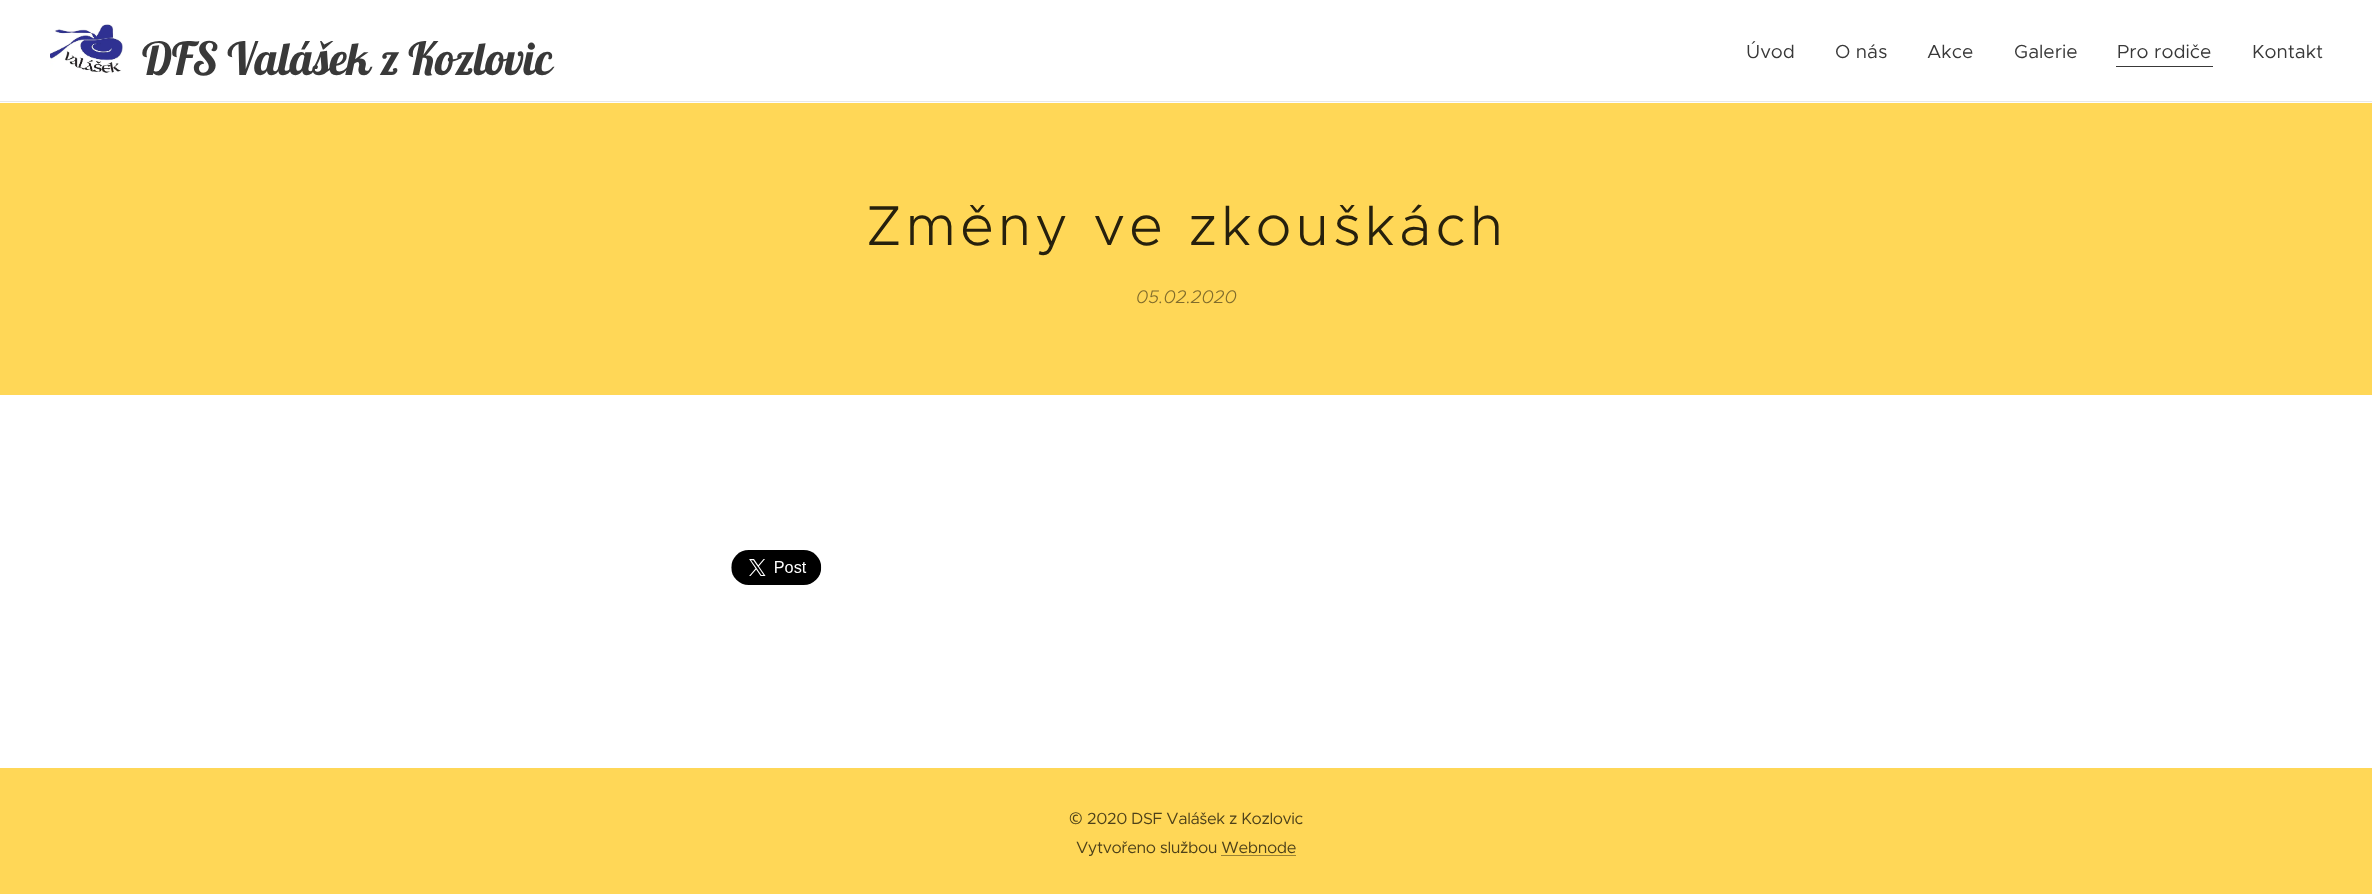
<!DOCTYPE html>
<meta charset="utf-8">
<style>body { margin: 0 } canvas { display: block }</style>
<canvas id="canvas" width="2372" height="894"></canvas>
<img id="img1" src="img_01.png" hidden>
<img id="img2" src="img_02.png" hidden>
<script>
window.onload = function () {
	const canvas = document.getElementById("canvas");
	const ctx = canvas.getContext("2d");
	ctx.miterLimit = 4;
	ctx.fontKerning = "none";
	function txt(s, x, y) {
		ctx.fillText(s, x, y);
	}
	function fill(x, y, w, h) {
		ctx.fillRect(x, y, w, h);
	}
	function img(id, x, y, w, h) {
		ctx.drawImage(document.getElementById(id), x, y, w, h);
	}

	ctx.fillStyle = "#FFFFFF";
	fill(0, 0, 2372, 894);
	img("img1", 50, 24, 73, 49);
	ctx.fillStyle = "#393939";
	fill(2116, 66, 97, 1);
	ctx.fillStyle = "#E8E8E8";
	fill(0, 101, 2372, 1);
	ctx.fillStyle = "#FFD757";
	fill(0, 103, 2372, 292);
	img("img2", 731, 550, 91, 35);
	fill(0, 768, 2372, 126);
	ctx.letterSpacing = "-0.4px";
	ctx.font = "45.5px Lobster";
	ctx.fillStyle = "#393939";
	txt("DFS Valášek z Kozlovic", 142, 75);
	ctx.letterSpacing = "0px";
	ctx.font = "19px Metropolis";
	txt("Úvod", 1746, 58);
	txt("O nás", 1835, 58);
	txt("Akce", 1927, 58);
	txt("Galerie", 2014, 58);
	txt("Pro rodiče", 2117, 58);
	txt("Kontakt", 2252, 58);
	ctx.letterSpacing = "4.5px";
	ctx.font = "300 56.25px Metropolis";
	ctx.fillStyle = "#26200D";
	txt("Změny ve zkouškách", 866, 245);
	ctx.letterSpacing = "0px";
	ctx.font = "italic 300 18.25px Metropolis";
	ctx.fillStyle = "#806C2C";
	txt("05.02.2020", 1136, 303);
	ctx.letterSpacing = "-0.4px";
	ctx.font = "16.25px Noto Sans";
	ctx.fillStyle = "#4D411A";
	txt("©", 1069, 824);
	ctx.font = "16.25px Metropolis";
	txt("2020", 1087, 824);
	txt("DSF Valášek z Kozlovic", 1131, 824);
	txt("Vytvořeno službou Webnode", 1076, 853);
	ctx.fillStyle = "#998134";
	fill(1221, 855, 75, 1);
};
</script>
